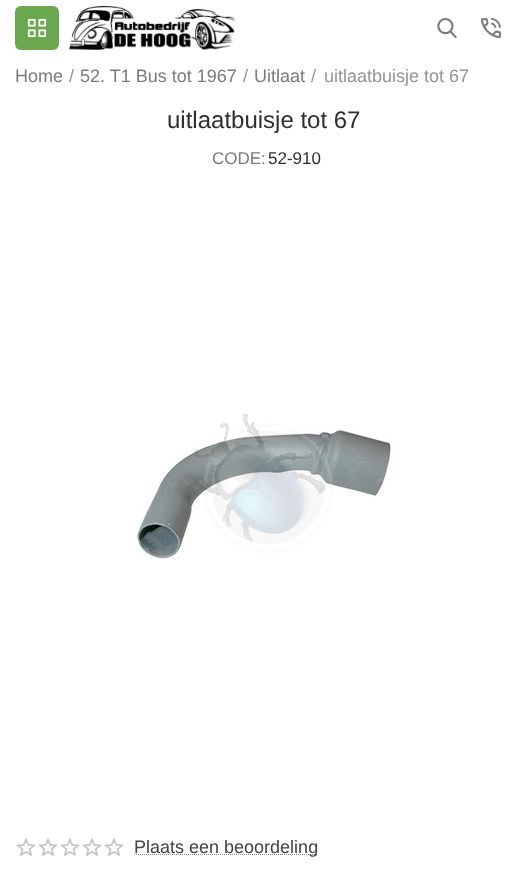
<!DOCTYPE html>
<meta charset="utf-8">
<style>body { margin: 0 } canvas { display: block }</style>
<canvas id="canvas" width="528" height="890"></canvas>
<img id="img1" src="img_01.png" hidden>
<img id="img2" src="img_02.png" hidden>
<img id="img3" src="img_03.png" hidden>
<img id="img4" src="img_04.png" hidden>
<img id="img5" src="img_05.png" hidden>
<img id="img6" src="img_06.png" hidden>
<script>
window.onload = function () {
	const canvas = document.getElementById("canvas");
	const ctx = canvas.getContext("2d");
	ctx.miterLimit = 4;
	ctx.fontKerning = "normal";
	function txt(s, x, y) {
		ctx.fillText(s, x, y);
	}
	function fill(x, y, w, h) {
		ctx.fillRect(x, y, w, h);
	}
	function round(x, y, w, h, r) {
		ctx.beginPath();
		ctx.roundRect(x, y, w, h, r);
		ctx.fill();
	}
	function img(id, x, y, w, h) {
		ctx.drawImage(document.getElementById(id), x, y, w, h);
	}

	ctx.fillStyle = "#FFFFFF";
	fill(0, 0, 528, 890);
	ctx.fillStyle = "#6AA84F";
	round(15, 6, 44, 44, 6);
	img("img1", 27, 18, 20, 20);
	img("img2", 69, 6, 166, 44);
	img("img3", 437, 18, 20, 20);
	img("img4", 481, 18, 20, 20);
	img("img5", 136, 414, 257, 145);
	img("img6", 16, 838, 108, 19);
	ctx.beginPath();
	ctx.moveTo(134, 854.5);
	ctx.lineTo(318, 854.5);
	ctx.strokeStyle = "#909090";
	ctx.setLineDash([1, 1]);
	ctx.stroke();
	ctx.font = "18px Liberation Sans";
	ctx.fillStyle = "#7B7B7B";
	txt("Home", 15, 82);
	ctx.fillStyle = "#949494";
	txt("/", 69, 82);
	ctx.fillStyle = "#7B7B7B";
	txt("52. T1 Bus tot 1967", 80, 82);
	ctx.fillStyle = "#949494";
	txt("/", 243, 82);
	ctx.fillStyle = "#7B7B7B";
	txt("Uitlaat", 254, 82);
	ctx.fillStyle = "#949494";
	txt("/", 311, 82);
	txt("uitlaatbuisje tot 67", 324, 82);
	ctx.font = "24px Liberation Sans";
	ctx.fillStyle = "#2E2E2E";
	txt("uitlaatbuisje tot 67", 167, 128);
	ctx.font = "17px Liberation Sans";
	ctx.fillStyle = "#7B7B7B";
	txt("CODE:", 212, 164);
	ctx.fillStyle = "#2E2E2E";
	txt("52-910", 268, 164);
	ctx.font = "18px Liberation Sans";
	ctx.fillStyle = "#434343";
	txt("Plaats een beoordeling", 134, 853);
};
</script>
